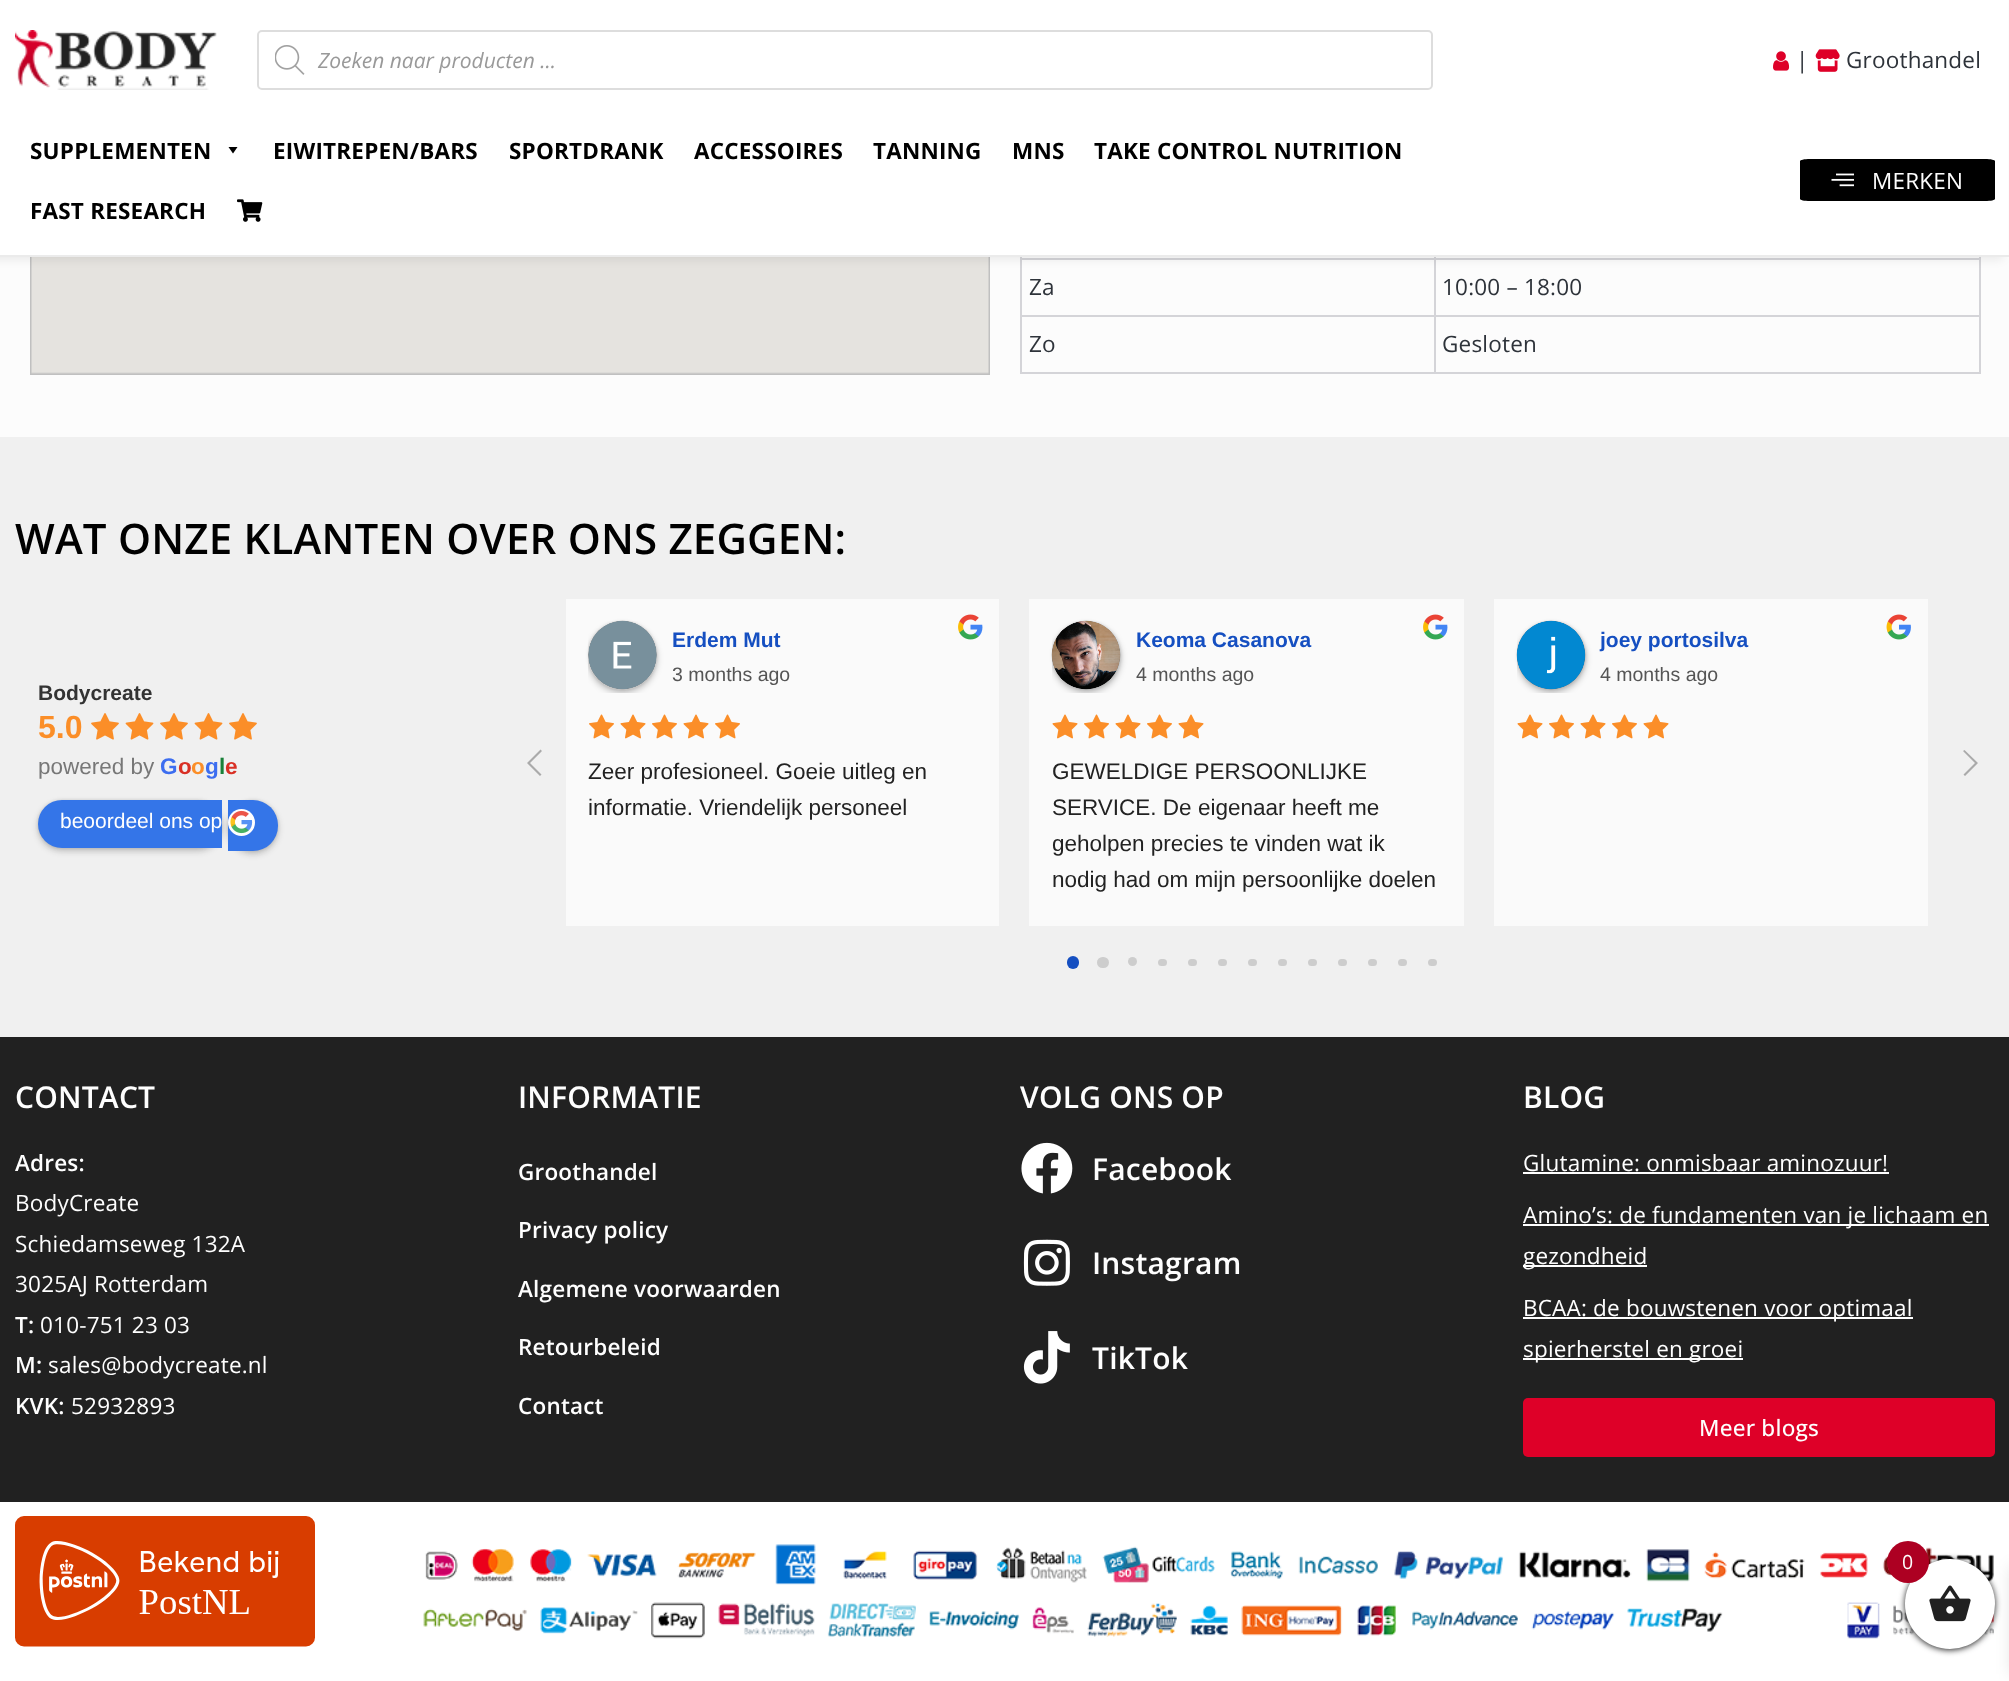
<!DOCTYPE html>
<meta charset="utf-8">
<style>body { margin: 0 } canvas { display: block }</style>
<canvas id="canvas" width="2009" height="1681"></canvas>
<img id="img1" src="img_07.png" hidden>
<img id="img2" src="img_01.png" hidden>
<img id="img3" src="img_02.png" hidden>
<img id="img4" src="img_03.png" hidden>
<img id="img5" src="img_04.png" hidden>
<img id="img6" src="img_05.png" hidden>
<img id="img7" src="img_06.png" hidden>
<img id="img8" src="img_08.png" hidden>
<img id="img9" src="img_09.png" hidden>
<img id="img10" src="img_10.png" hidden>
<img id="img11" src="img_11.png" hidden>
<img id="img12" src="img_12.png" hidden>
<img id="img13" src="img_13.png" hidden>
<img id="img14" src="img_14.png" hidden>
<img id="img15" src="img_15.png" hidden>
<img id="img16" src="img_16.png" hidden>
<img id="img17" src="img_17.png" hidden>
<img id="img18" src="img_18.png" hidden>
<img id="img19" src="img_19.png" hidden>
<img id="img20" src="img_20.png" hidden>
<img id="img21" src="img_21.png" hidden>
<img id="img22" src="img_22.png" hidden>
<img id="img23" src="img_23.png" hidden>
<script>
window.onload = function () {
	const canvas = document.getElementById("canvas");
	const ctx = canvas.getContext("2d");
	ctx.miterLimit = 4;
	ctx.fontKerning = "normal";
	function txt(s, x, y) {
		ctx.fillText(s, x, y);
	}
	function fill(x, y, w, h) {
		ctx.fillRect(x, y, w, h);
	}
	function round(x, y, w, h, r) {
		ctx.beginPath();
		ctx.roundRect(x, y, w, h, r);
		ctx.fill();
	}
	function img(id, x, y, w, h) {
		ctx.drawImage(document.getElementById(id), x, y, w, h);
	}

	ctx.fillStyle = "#FFFFFF";
	fill(0, 0, 2009, 1681);
	ctx.fillStyle = "#FCFCFC";
	fill(0, 257, 2009, 180);
	img("img1", 30, 257, 960, 118);
	ctx.fillStyle = "#D4D4D8";
	fill(1434, 258, 546, 2);
	fill(1434, 315, 546, 2);
	fill(1979, 315, 2, 59);
	fill(1434, 372, 546, 2);
	fill(1434, 315, 2, 59);
	fill(1020, 315, 416, 2);
	fill(1434, 258, 2, 59);
	fill(1020, 258, 416, 2);
	fill(1434, 257, 2, 3);
	fill(1020, 372, 416, 2);
	fill(1020, 315, 2, 59);
	fill(1020, 257, 2, 60);
	fill(1979, 257, 2, 60);
	ctx.fillStyle = "rgba(0, 0, 0, 0.07)";
	ctx.filter = "blur(4.5px)";
	ctx.beginPath();
	ctx.rect(-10, 0, 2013, 260);
	ctx.fill();
	ctx.filter = "none";
	ctx.fillStyle = "#FFFFFF";
	fill(0, 0, 2008, 255);
	ctx.fillStyle = "#EBEBEB";
	fill(0, 255, 2009, 2);
	img("img2", 15, 30, 202, 60);
	ctx.beginPath();
	ctx.roundRect(258, 31, 1174, 58, 4);
	ctx.strokeStyle = "#DDDDDD";
	ctx.lineWidth = 2;
	ctx.stroke();
	img("img3", 275, 45, 30, 30);
	img("img4", 1773, 51, 17, 20);
	img("img5", 1815, 49, 25, 23);
	ctx.fillStyle = "#000000";
	ctx.beginPath();
	ctx.moveTo(237.5, 147);
	ctx.lineTo(233, 153.5);
	ctx.lineTo(228.5, 147);
	ctx.closePath();
	ctx.fill();
	img("img6", 237, 199, 26, 23);
	ctx.beginPath();
	ctx.moveTo(1810, 159);
	ctx.lineTo(1985, 159);
	ctx.bezierCurveTo(1991, 159, 1995, 160, 1995, 161);
	ctx.lineTo(1995, 199);
	ctx.bezierCurveTo(1995, 200, 1991, 201, 1985, 201);
	ctx.lineTo(1810, 201);
	ctx.bezierCurveTo(1804, 201, 1800, 200, 1800, 199);
	ctx.lineTo(1800, 161);
	ctx.bezierCurveTo(1800, 160, 1804, 159, 1810, 159);
	ctx.closePath();
	ctx.fill();
	img("img7", 1831, 173, 23, 14);
	ctx.fillStyle = "#F0F0F0";
	fill(0, 437, 2009, 600);
	img("img8", 91, 713, 28, 27);
	img("img9", 125, 713, 29, 27);
	img("img8", 160, 713, 28, 27);
	img("img9", 194, 713, 29, 27);
	img("img8", 229, 713, 28, 27);
	ctx.fillStyle = "rgba(24, 24, 24, 0.24)";
	ctx.filter = "blur(3px)";
	ctx.beginPath();
	ctx.roundRect(38, 803, 184, 48, 24);
	ctx.fill();
	ctx.filter = "none";
	ctx.fillStyle = "rgba(24, 24, 24, 0.12)";
	ctx.filter = "blur(1.5px)";
	ctx.beginPath();
	ctx.roundRect(38, 800, 184, 48, 24);
	ctx.fill();
	ctx.filter = "none";
	ctx.fillStyle = "#3475E8";
	ctx.beginPath();
	ctx.roundRect(38, 800, 184, 48, [24, 0, 0, 24]);
	ctx.fill();
	ctx.fillStyle = "rgba(24, 24, 24, 0.24)";
	ctx.filter = "blur(3px)";
	ctx.beginPath();
	ctx.roundRect(228, 803, 50, 51, 25);
	ctx.fill();
	ctx.filter = "none";
	ctx.fillStyle = "rgba(24, 24, 24, 0.12)";
	ctx.filter = "blur(1.5px)";
	ctx.beginPath();
	ctx.roundRect(228, 800, 50, 51, 25);
	ctx.fill();
	ctx.filter = "none";
	ctx.fillStyle = "#3475E8";
	ctx.beginPath();
	ctx.roundRect(228, 800, 50, 51, [0, 25, 25, 0]);
	ctx.fill();
	ctx.fillStyle = "#FEFEFE";
	ctx.beginPath();
	ctx.arc(241.5, 822.5, 13.5, 0, Math.PI * 2);
	ctx.fill();
	img("img10", 230, 810, 23, 24);
	ctx.fillStyle = "#AAAAAA";
	ctx.beginPath();
	ctx.moveTo(540, 776);
	ctx.lineTo(527, 763);
	ctx.lineTo(540.5, 749.5);
	ctx.lineTo(542, 751);
	ctx.lineTo(530, 763);
	ctx.lineTo(541.5, 774.5);
	ctx.closePath();
	ctx.fill();
	ctx.fillStyle = "#FAFAFA";
	fill(566, 599, 433, 327);
	img("img11", 958, 614, 25, 26);
	ctx.save();
	ctx.beginPath();
	ctx.rect(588, 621, 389, 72);
	ctx.clip();
	ctx.fillStyle = "rgba(0, 0, 0, 0.24)";
	ctx.filter = "blur(3px)";
	ctx.beginPath();
	ctx.roundRect(588, 624, 69, 69, 34.5);
	ctx.fill();
	ctx.filter = "none";
	ctx.restore();
	ctx.save();
	ctx.beginPath();
	ctx.moveTo(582, 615);
	ctx.lineTo(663, 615);
	ctx.lineTo(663, 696);
	ctx.lineTo(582, 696);
	ctx.closePath();
	ctx.moveTo(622.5, 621);
	ctx.bezierCurveTo(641.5, 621, 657, 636.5, 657, 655.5);
	ctx.bezierCurveTo(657, 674.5, 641.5, 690, 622.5, 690);
	ctx.bezierCurveTo(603.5, 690, 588, 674.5, 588, 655.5);
	ctx.bezierCurveTo(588, 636.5, 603.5, 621, 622.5, 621);
	ctx.closePath();
	ctx.clip("evenodd");
	ctx.fillStyle = "rgba(0, 0, 0, 0.12)";
	ctx.filter = "blur(1.5px)";
	ctx.beginPath();
	ctx.roundRect(588, 621, 69, 69, 34.5);
	ctx.fill();
	ctx.filter = "none";
	ctx.restore();
	img("img12", 588, 620, 69, 70);
	img("img13", 589, 714, 25, 25);
	img("img14", 620, 714, 26, 25);
	img("img13", 652, 714, 25, 25);
	img("img14", 683, 714, 26, 25);
	img("img13", 715, 714, 25, 25);
	fill(1029, 599, 435, 327);
	img("img11", 1423, 614, 25, 26);
	ctx.save();
	ctx.beginPath();
	ctx.rect(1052, 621, 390, 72);
	ctx.clip();
	ctx.fillStyle = "rgba(0, 0, 0, 0.24)";
	ctx.filter = "blur(3px)";
	ctx.beginPath();
	ctx.roundRect(1052, 624, 69, 69, 34.5);
	ctx.fill();
	ctx.filter = "none";
	ctx.restore();
	ctx.fillStyle = "rgba(0, 0, 0, 0.12)";
	ctx.filter = "blur(1.5px)";
	ctx.beginPath();
	ctx.roundRect(1052, 621, 69, 69, 34.5);
	ctx.fill();
	ctx.filter = "none";
	img("img15", 1051, 620, 70, 70);
	img("img14", 1052, 714, 26, 25);
	img("img13", 1084, 714, 25, 25);
	img("img14", 1115, 714, 26, 25);
	img("img13", 1147, 714, 25, 25);
	img("img14", 1178, 714, 26, 25);
	ctx.fillStyle = "#FAFAFA";
	fill(1494, 599, 434, 327);
	img("img16", 1886, 614, 25, 26);
	ctx.save();
	ctx.beginPath();
	ctx.rect(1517, 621, 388, 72);
	ctx.clip();
	ctx.fillStyle = "rgba(0, 0, 0, 0.24)";
	ctx.filter = "blur(3px)";
	ctx.beginPath();
	ctx.roundRect(1517, 624, 69, 69, 34.5);
	ctx.fill();
	ctx.filter = "none";
	ctx.restore();
	ctx.fillStyle = "rgba(0, 0, 0, 0.12)";
	ctx.filter = "blur(1.5px)";
	ctx.beginPath();
	ctx.roundRect(1517, 621, 69, 69, 34.5);
	ctx.fill();
	ctx.filter = "none";
	img("img17", 1516, 620, 70, 70);
	img("img14", 1517, 714, 26, 25);
	img("img13", 1549, 714, 25, 25);
	img("img14", 1580, 714, 26, 25);
	img("img13", 1612, 714, 25, 25);
	img("img14", 1643, 714, 26, 25);
	ctx.fillStyle = "#AAAAAA";
	ctx.beginPath();
	ctx.moveTo(1965, 776);
	ctx.lineTo(1963.5, 774.5);
	ctx.lineTo(1975, 763);
	ctx.lineTo(1963, 751);
	ctx.lineTo(1964.5, 750);
	ctx.lineTo(1978, 763);
	ctx.closePath();
	ctx.fill();
	ctx.fillStyle = "#154FC1";
	round(1067, 956, 12, 13, 6);
	ctx.fillStyle = "#CDCDCD";
	round(1097, 957, 12, 11, 5.5);
	ctx.beginPath();
	ctx.arc(1132.5, 961.5, 4.5, 0, Math.PI * 2);
	ctx.fill();
	round(1158, 959, 9, 7, 3.5);
	round(1188, 959, 9, 7, 3.5);
	round(1218, 959, 9, 7, 3.5);
	round(1248, 959, 9, 7, 3.5);
	round(1278, 959, 9, 7, 3.5);
	round(1308, 959, 9, 7, 3.5);
	round(1338, 959, 9, 7, 3.5);
	round(1368, 959, 9, 7, 3.5);
	round(1398, 959, 9, 7, 3.5);
	round(1428, 959, 9, 7, 3.5);
	ctx.fillStyle = "#212121";
	fill(0, 1037, 2009, 465);
	img("img18", 1021, 1142, 52, 52);
	img("img19", 1023, 1239, 47, 47);
	img("img20", 1023, 1331, 47, 53);
	ctx.fillStyle = "#FFFFFF";
	fill(1523, 1172, 366, 2);
	fill(1523, 1224, 466, 2);
	fill(1523, 1265, 124, 2);
	fill(1523, 1317, 390, 2);
	fill(1523, 1358, 220, 2);
	ctx.fillStyle = "#DE0028";
	round(1523, 1398, 472, 59, 5);
	img("img21", 15, 1516, 300, 131);
	img("img22", 423, 1544, 1571, 95);
	ctx.fillStyle = "#212121";
	ctx.filter = "blur(3px)";
	ctx.beginPath();
	ctx.roundRect(1905, 1560, 90, 90, 45);
	ctx.fill();
	ctx.filter = "none";
	ctx.fillStyle = "rgba(0, 0, 0, 0.1)";
	ctx.filter = "blur(7.5px)";
	ctx.beginPath();
	ctx.rect(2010, 1566, 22, 108);
	ctx.fill();
	ctx.filter = "none";
	ctx.fillStyle = "#FFFFFF";
	ctx.beginPath();
	ctx.arc(1950, 1604, 45, 0, Math.PI * 2);
	ctx.fill();
	ctx.fillStyle = "#AD0022";
	ctx.beginPath();
	ctx.arc(1908, 1562, 21, 0, Math.PI * 2);
	ctx.fill();
	img("img23", 1929, 1585, 42, 37);
	ctx.font = "italic 21px Open Sans";
	ctx.fillStyle = "#999999";
	txt("Zoeken naar producten ...", 318, 68);
	ctx.letterSpacing = "0.2px";
	ctx.font = "22.5px Open Sans";
	ctx.fillStyle = "#2E333A";
	txt("|", 1796, 68);
	txt("Groothandel", 1846, 68);
	ctx.font = "bold 22.5px Open Sans";
	ctx.fillStyle = "#000000";
	txt("SUPPLEMENTEN", 30, 159);
	txt("EIWITREPEN/BARS", 273, 159);
	txt("SPORTDRANK", 509, 159);
	txt("ACCESSOIRES", 694, 159);
	txt("TANNING", 873, 159);
	txt("MNS", 1012, 159);
	txt("TAKE CONTROL NUTRITION", 1094, 159);
	txt("FAST RESEARCH", 30, 219);
	ctx.font = "22.5px Open Sans";
	ctx.fillStyle = "#FEFEFE";
	txt("MERKEN", 1872, 189);
	ctx.fillStyle = "#2E333A";
	txt("Za", 1029, 295);
	txt("10:00 – 18:00", 1442, 295);
	txt("Zo", 1029, 352);
	txt("Gesloten", 1442, 352);
	ctx.font = "600 42px Open Sans";
	ctx.fillStyle = "#000000";
	txt("WAT ONZE KLANTEN OVER ONS ZEGGEN:", 15, 554);
	ctx.letterSpacing = "0px";
	ctx.font = "bold 21px Liberation Sans";
	ctx.fillStyle = "#333333";
	txt("Bodycreate", 38, 700);
	ctx.font = "bold 32px Liberation Sans";
	ctx.fillStyle = "#FB8E28";
	txt("5.0", 38, 738);
	ctx.font = "22.5px Liberation Sans";
	ctx.fillStyle = "#777777";
	txt("powered by", 38, 774);
	ctx.font = "bold 22.5px Liberation Sans";
	ctx.fillStyle = "#3C6DF0";
	txt("G", 160, 774);
	ctx.fillStyle = "#D93025";
	txt("o", 178, 774);
	ctx.fillStyle = "#FB8E28";
	txt("o", 191, 774);
	ctx.fillStyle = "#3C6DF0";
	txt("g", 205, 774);
	ctx.fillStyle = "#188038";
	txt("l", 219, 774);
	ctx.fillStyle = "#D93025";
	txt("e", 225, 774);
	ctx.font = "21px Liberation Sans";
	ctx.fillStyle = "#FEFEFE";
	txt("beoordeel ons op", 60, 828);
	ctx.font = "bold 21px Liberation Sans";
	ctx.fillStyle = "#154FC1";
	txt("Erdem Mut", 672, 647);
	ctx.font = "19.5px Liberation Sans";
	ctx.fillStyle = "#555555";
	txt("3 months ago", 672, 681);
	ctx.font = "22.5px Liberation Sans";
	ctx.fillStyle = "#222222";
	txt("Zeer profesioneel. Goeie uitleg en", 588, 779);
	txt("informatie. Vriendelijk personeel", 588, 815);
	ctx.font = "bold 21px Liberation Sans";
	ctx.fillStyle = "#154FC1";
	txt("Keoma Casanova", 1136, 647);
	ctx.font = "19.5px Liberation Sans";
	ctx.fillStyle = "#555555";
	txt("4 months ago", 1136, 681);
	ctx.font = "22.5px Liberation Sans";
	ctx.fillStyle = "#222222";
	txt("GEWELDIGE PERSOONLIJKE", 1052, 779);
	txt("SERVICE. De eigenaar heeft me", 1052, 815);
	txt("geholpen precies te vinden wat ik", 1052, 851);
	txt("nodig had om mijn persoonlijke doelen", 1052, 887);
	ctx.font = "bold 21px Liberation Sans";
	ctx.fillStyle = "#154FC1";
	txt("joey portosilva", 1600, 647);
	ctx.font = "19.5px Liberation Sans";
	ctx.fillStyle = "#555555";
	txt("4 months ago", 1600, 681);
	ctx.letterSpacing = "0.2px";
	ctx.font = "600 30px Open Sans";
	ctx.fillStyle = "#FEFEFE";
	txt("CONTACT", 15, 1108);
	ctx.font = "600 22.5px Open Sans";
	txt("Adres:", 15, 1171);
	ctx.font = "22.5px Open Sans";
	txt("BodyCreate", 15, 1211);
	txt("Schiedamseweg 132A", 15, 1252);
	txt("3025AJ Rotterdam", 15, 1292);
	ctx.font = "600 22.5px Open Sans";
	txt("T:", 15, 1333);
	ctx.font = "22.5px Open Sans";
	txt("010-751 23 03", 40, 1333);
	ctx.font = "600 22.5px Open Sans";
	txt("M:", 15, 1373);
	ctx.font = "22.5px Open Sans";
	txt("sales@bodycreate.nl", 48, 1373);
	ctx.font = "600 22.5px Open Sans";
	txt("KVK:", 15, 1414);
	ctx.font = "22.5px Open Sans";
	txt("52932893", 71, 1414);
	ctx.font = "600 30px Open Sans";
	txt("INFORMATIE", 518, 1108);
	ctx.font = "600 22.5px Open Sans";
	txt("Groothandel", 518, 1180);
	txt("Privacy policy", 518, 1238);
	txt("Algemene voorwaarden", 518, 1297);
	txt("Retourbeleid", 518, 1355);
	txt("Contact", 518, 1414);
	ctx.font = "600 30px Open Sans";
	txt("VOLG ONS OP", 1020, 1108);
	txt("Facebook", 1092, 1180);
	txt("Instagram", 1092, 1274);
	txt("TikTok", 1092, 1369);
	txt("BLOG", 1523, 1108);
	ctx.font = "22.5px Open Sans";
	txt("Glutamine: onmisbaar aminozuur!", 1523, 1171);
	txt("Amino’s: de fundamenten van je lichaam en", 1523, 1223);
	txt("gezondheid", 1523, 1264);
	txt("BCAA: de bouwstenen voor optimaal", 1523, 1316);
	txt("spierherstel en groei", 1523, 1357);
	ctx.font = "500 22.5px Open Sans";
	txt("Meer blogs", 1699, 1436);
	ctx.font = "19.5px Open Sans";
	txt("0", 1902, 1569);
};
</script>
